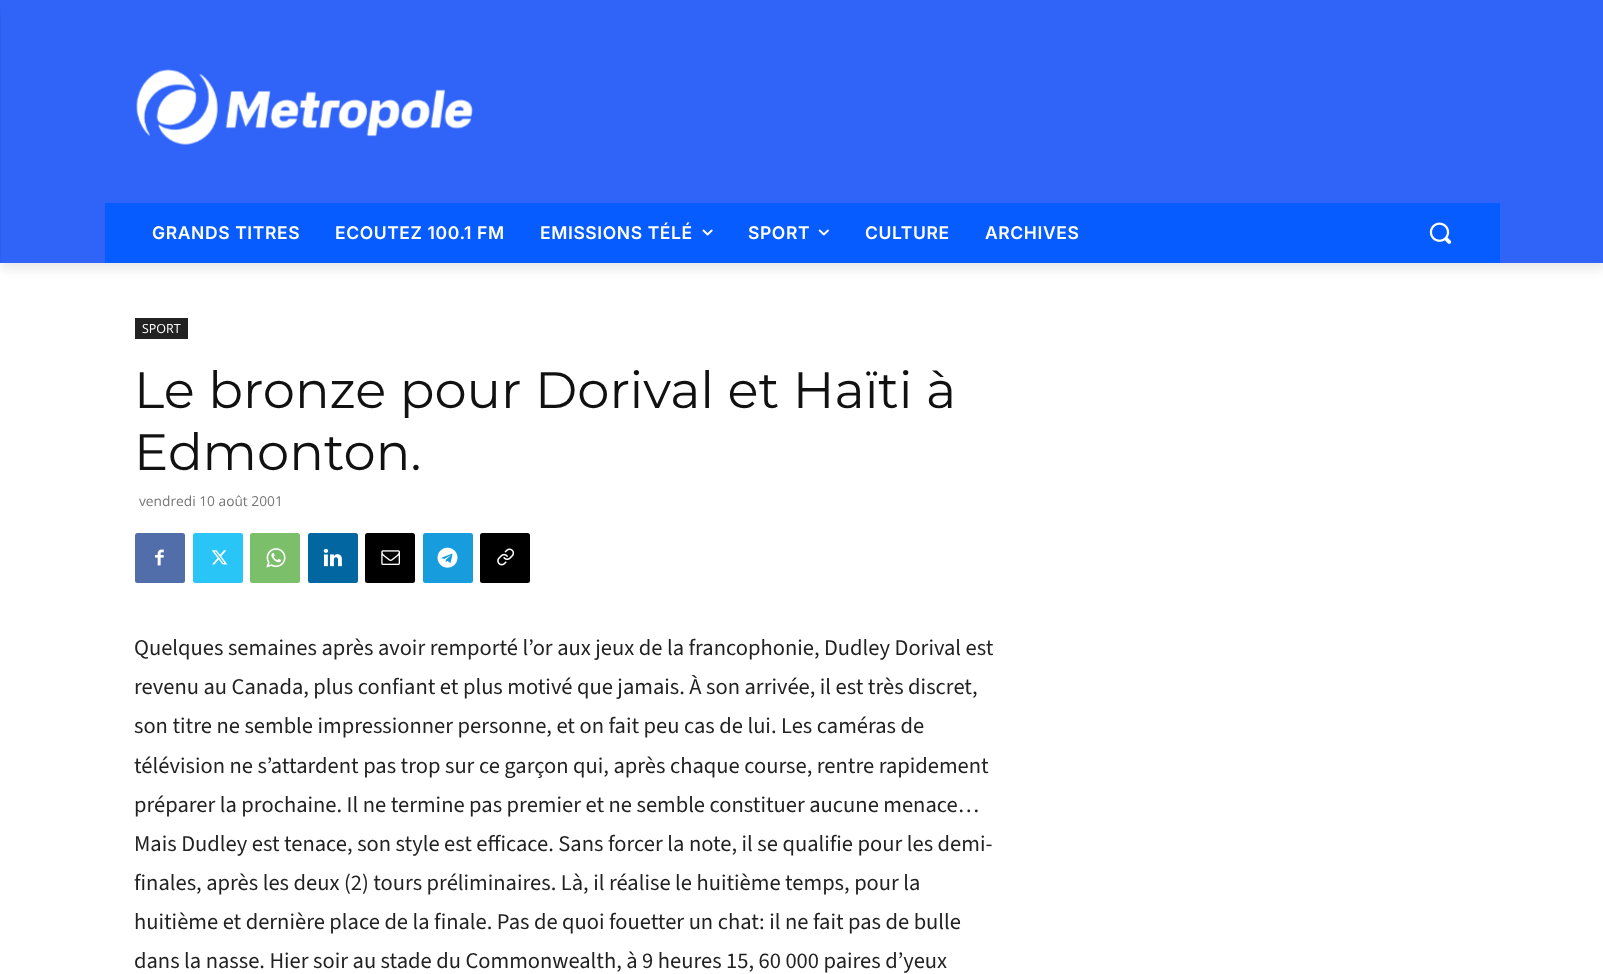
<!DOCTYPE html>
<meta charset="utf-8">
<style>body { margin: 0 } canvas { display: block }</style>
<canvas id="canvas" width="1603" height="974"></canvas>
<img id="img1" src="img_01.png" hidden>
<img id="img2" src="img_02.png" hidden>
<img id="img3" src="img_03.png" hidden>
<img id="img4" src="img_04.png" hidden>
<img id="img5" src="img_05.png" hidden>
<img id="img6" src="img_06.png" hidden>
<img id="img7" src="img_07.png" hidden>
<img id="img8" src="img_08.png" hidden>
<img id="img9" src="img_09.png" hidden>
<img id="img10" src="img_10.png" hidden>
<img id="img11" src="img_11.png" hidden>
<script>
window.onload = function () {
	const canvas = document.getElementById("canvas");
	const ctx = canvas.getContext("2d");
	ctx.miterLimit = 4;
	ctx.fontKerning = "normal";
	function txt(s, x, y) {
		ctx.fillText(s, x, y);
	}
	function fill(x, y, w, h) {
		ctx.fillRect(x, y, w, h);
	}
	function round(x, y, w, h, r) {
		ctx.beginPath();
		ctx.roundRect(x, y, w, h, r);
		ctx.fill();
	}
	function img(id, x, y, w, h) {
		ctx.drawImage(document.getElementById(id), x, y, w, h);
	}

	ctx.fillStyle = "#FFFFFF";
	fill(0, 0, 1603, 974);
	ctx.fillStyle = "#3064F9";
	fill(0, 0, 1603, 263);
	img("img1", 136, 69, 337, 76);
	ctx.save();
	ctx.beginPath();
	ctx.moveTo(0, 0);
	ctx.lineTo(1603, 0);
	ctx.lineTo(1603, 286);
	ctx.lineTo(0, 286);
	ctx.closePath();
	ctx.moveTo(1, 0);
	ctx.lineTo(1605, 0);
	ctx.lineTo(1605, 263);
	ctx.lineTo(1, 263);
	ctx.closePath();
	ctx.clip("evenodd");
	ctx.fillStyle = "rgba(0, 0, 0, 0.08)";
	ctx.filter = "blur(5px)";
	ctx.beginPath();
	ctx.rect(1, 8, 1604, 262);
	ctx.fill();
	ctx.filter = "none";
	ctx.restore();
	ctx.fillStyle = "#065CFF";
	fill(105, 203, 1395, 60);
	img("img2", 702, 229, 11, 7);
	img("img3", 818, 229, 11, 7);
	img("img4", 1429, 222, 23, 22);
	ctx.fillStyle = "#222222";
	fill(135, 318, 53, 21);
	ctx.fillStyle = "#516EAB";
	round(135, 533, 50, 50, 2.5);
	img("img5", 155, 549, 9, 17);
	ctx.fillStyle = "#29C5F6";
	round(193, 533, 50, 50, 2.5);
	img("img6", 211, 550, 17, 15);
	ctx.fillStyle = "#7BBF6A";
	round(250, 533, 50, 50, 2.5);
	img("img7", 266, 548, 20, 20);
	ctx.fillStyle = "#0266A0";
	round(308, 533, 50, 50, 2.5);
	img("img8", 323, 548, 19, 19);
	ctx.fillStyle = "#000000";
	round(365, 533, 50, 50, 2.5);
	img("img9", 381, 550, 19, 15);
	ctx.fillStyle = "#179CDE";
	round(423, 533, 50, 50, 2.5);
	img("img10", 437, 547, 21, 21);
	ctx.fillStyle = "#000000";
	round(480, 533, 50, 50, 2.5);
	img("img11", 497, 548, 18, 18);
	ctx.letterSpacing = "0.6px";
	ctx.font = "600 17.5px Inter";
	ctx.fillStyle = "#FFFFFF";
	txt("GRANDS TITRES", 152, 239);
	txt("ECOUTEZ 100.1 FM", 335, 239);
	txt("EMISSIONS TÉLÉ", 540, 239);
	txt("SPORT", 748, 239);
	txt("CULTURE", 865, 239);
	txt("ARCHIVES", 985, 239);
	ctx.letterSpacing = "0px";
	ctx.font = "12.5px Open Sans";
	txt("SPORT", 142, 333);
	ctx.font = "100 51.25px Montserrat";
	ctx.fillStyle = "#111111";
	txt("Le bronze pour Dorival et Haïti à", 134, 408);
	txt("Edmonton.", 134, 470);
	ctx.font = "13.75px Open Sans";
	ctx.fillStyle = "#767676";
	txt("vendredi 10 août 2001", 139, 506);
	ctx.font = "200 22.5px 'Source Sans 3'";
	ctx.fillStyle = "#222222";
	txt("Quelques semaines après avoir remporté l’or aux jeux de la francophonie, Dudley Dorival est", 134, 655);
	txt("revenu au Canada, plus confiant et plus motivé que jamais. À son arrivée, il est très discret,", 134, 694);
	txt("son titre ne semble impressionner personne, et on fait peu cas de lui. Les caméras de", 134, 733);
	txt("télévision ne s’attardent pas trop sur ce garçon qui, après chaque course, rentre rapidement", 134, 773);
	txt("préparer la prochaine. Il ne termine pas premier et ne semble constituer aucune menace…", 134, 812);
	txt("Mais Dudley est tenace, son style est efficace. Sans forcer la note, il se qualifie pour les demi-", 134, 851);
	txt("finales, après les deux (2) tours préliminaires. Là, il réalise le huitième temps, pour la", 134, 890);
	txt("huitième et dernière place de la finale. Pas de quoi fouetter un chat: il ne fait pas de bulle", 134, 929);
	txt("dans la nasse. Hier soir au stade du Commonwealth, à 9 heures 15, 60 000 paires d’yeux", 134, 968);
};
</script>
